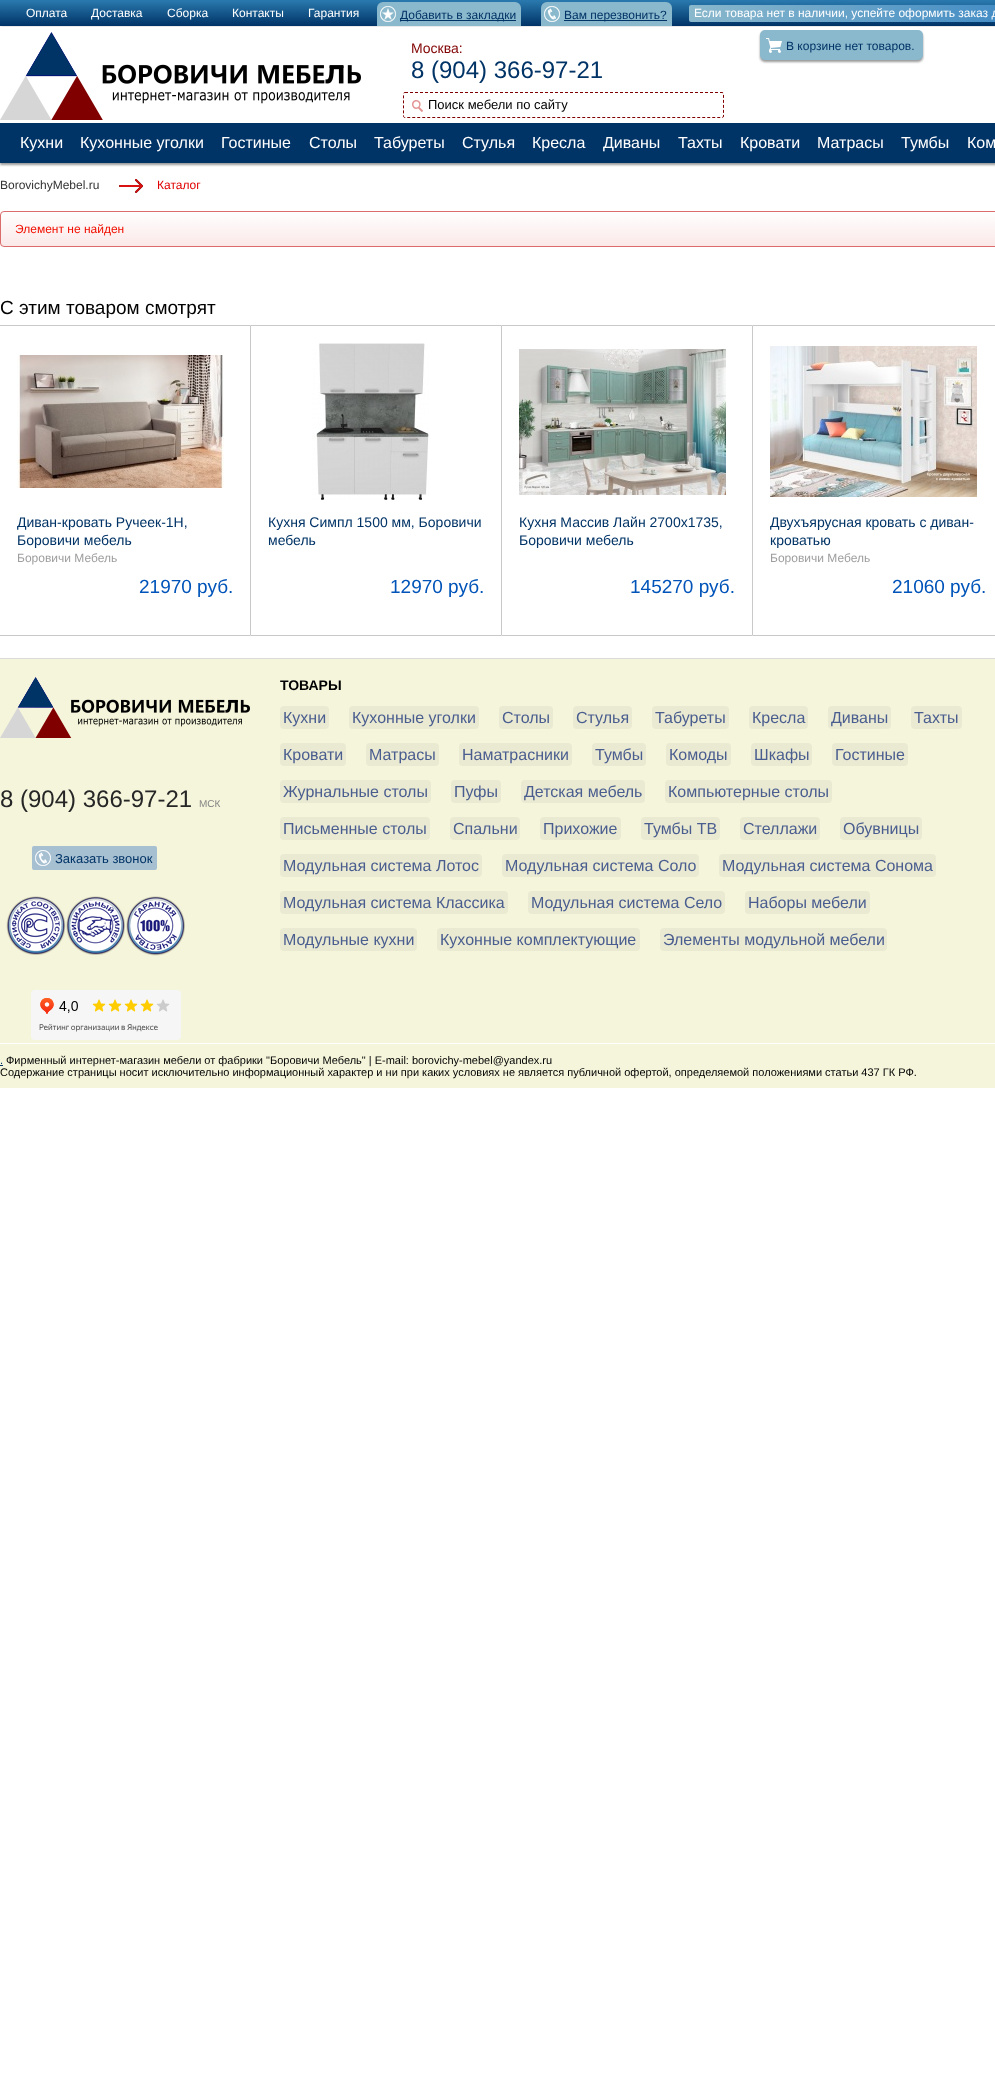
<!DOCTYPE html>
<meta charset="utf-8">
<style>body { margin: 0 } canvas { display: block }</style>
<canvas id="canvas" width="995" height="2092"></canvas>
<img id="img1" src="img_01.png" hidden>
<img id="img2" src="img_02.png" hidden>
<img id="img3" src="img_03.png" hidden>
<img id="img4" src="img_04.png" hidden>
<img id="img5" src="img_05.png" hidden>
<img id="img6" src="img_06.png" hidden>
<img id="img7" src="img_07.png" hidden>
<img id="img8" src="img_08.png" hidden>
<img id="img9" src="img_09.png" hidden>
<img id="img10" src="img_10.png" hidden>
<img id="img11" src="img_11.png" hidden>
<img id="img12" src="img_12.png" hidden>
<img id="img13" src="img_13.png" hidden>
<img id="img14" src="img_14.png" hidden>
<img id="img15" src="img_15.png" hidden>
<img id="img16" src="img_16.png" hidden>
<script>
window.onload = function () {
	const canvas = document.getElementById("canvas");
	const ctx = canvas.getContext("2d");
	ctx.miterLimit = 4;
	ctx.fontKerning = "normal";
	function txt(s, x, y) {
		ctx.fillText(s, x, y);
	}
	function fill(x, y, w, h) {
		ctx.fillRect(x, y, w, h);
	}
	function round(x, y, w, h, r) {
		ctx.beginPath();
		ctx.roundRect(x, y, w, h, r);
		ctx.fill();
	}
	function img(id, x, y, w, h) {
		ctx.drawImage(document.getElementById(id), x, y, w, h);
	}
	let gradient;

	ctx.fillStyle = "#FFFFFF";
	fill(0, 0, 995, 2092);
	ctx.fillStyle = "#000000";
	ctx.filter = "blur(1px)";
	ctx.beginPath();
	ctx.rect(1, 1, 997, 24);
	ctx.fill();
	ctx.filter = "none";
	gradient = ctx.createLinearGradient(630, 0, 630, 26);
	gradient.addColorStop(0, "#2A7AAF");
	gradient.addColorStop(1, "#003366");
	ctx.fillStyle = gradient;
	fill(0, 0, 995, 26);
	ctx.fillStyle = "#8AB8CC";
	ctx.beginPath();
	ctx.roundRect(377, 2, 144, 24, [6, 6, 0, 0]);
	ctx.fill();
	img("img1", 380, 6, 16, 16);
	ctx.fillStyle = "#003366";
	fill(400, 20, 116, 1);
	ctx.fillStyle = "#8AB8CC";
	ctx.beginPath();
	ctx.roundRect(541, 2, 131, 24, [6, 6, 0, 0]);
	ctx.fill();
	img("img2", 544, 6, 16, 16);
	ctx.fillStyle = "#003366";
	fill(564, 20, 103, 1);
	gradient = ctx.createLinearGradient(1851, 14, 689, 13);
	gradient.addColorStop(0, "#8AB8CC");
	gradient.addColorStop(0.25, "#64CAEA");
	gradient.addColorStop(0.5, "#55C5E9");
	gradient.addColorStop(0.5, "#0768BF");
	gradient.addColorStop(1, "#8AB8CC");
	ctx.fillStyle = gradient;
	round(689, 5, 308, 17, 2);
	img("img3", 0, 32, 361, 88);
	ctx.beginPath();
	ctx.moveTo(405, 92.5);
	ctx.lineTo(722, 92.5);
	ctx.bezierCurveTo(723, 92.5, 723.5, 93, 723.5, 94);
	ctx.lineTo(723.5, 116);
	ctx.bezierCurveTo(723.5, 117, 723, 117.5, 722, 117.5);
	ctx.lineTo(405, 117.5);
	ctx.bezierCurveTo(404, 117.5, 403.5, 117, 403.5, 116);
	ctx.lineTo(403.5, 94);
	ctx.bezierCurveTo(403.5, 93, 404, 92.5, 405, 92.5);
	ctx.closePath();
	ctx.strokeStyle = "#800000";
	ctx.setLineDash([3, 2]);
	ctx.stroke();
	img("img4", 412, 100, 11, 12);
	ctx.fillStyle = "rgba(0, 0, 0, 0.4)";
	ctx.filter = "blur(1px)";
	ctx.beginPath();
	ctx.roundRect(760, 32, 163, 30, 5);
	ctx.fill();
	ctx.filter = "none";
	ctx.fillStyle = "#8AB8CC";
	round(760, 30, 163, 30, 5);
	img("img5", 766, 38, 16, 15);
	ctx.fillStyle = "rgba(0, 0, 0, 0.4)";
	ctx.filter = "blur(1px)";
	ctx.beginPath();
	ctx.rect(0, 125, 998, 40);
	ctx.fill();
	ctx.filter = "none";
	ctx.fillStyle = "#003366";
	fill(0, 123, 995, 40);
	img("img6", 119, 179, 24, 14);
	ctx.save();
	ctx.beginPath();
	ctx.roundRect(0, 211, 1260, 36, 4);
	ctx.clip();
	gradient = ctx.createLinearGradient(630, 212, 630, 246);
	gradient.addColorStop(0, "#FFFFFF");
	gradient.addColorStop(1, "#FBE8E8");
	ctx.fillStyle = gradient;
	fill(0, 212, 995, 34);
	ctx.restore();
	ctx.beginPath();
	ctx.roundRect(0.5, 211.5, 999, 35, 3.5);
	ctx.strokeStyle = "#DB6C6C";
	ctx.setLineDash([]);
	ctx.stroke();
	ctx.beginPath();
	ctx.roundRect(-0.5, 325.5, 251, 310, 0.5);
	ctx.strokeStyle = "#C9C9C9";
	ctx.stroke();
	img("img7", 17, 355, 207, 133);
	ctx.fillStyle = "#FFFFFF";
	ctx.beginPath();
	ctx.roundRect(250.5, 325.5, 251, 310, 0.5);
	ctx.fill();
	ctx.stroke();
	img("img8", 312, 343, 117, 157);
	ctx.beginPath();
	ctx.roundRect(501.5, 325.5, 251, 310, 0.5);
	ctx.fill();
	ctx.stroke();
	img("img9", 519, 349, 207, 146);
	ctx.beginPath();
	ctx.roundRect(752.5, 325.5, 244, 310, 0.5);
	ctx.fill();
	ctx.stroke();
	img("img10", 770, 346, 207, 151);
	ctx.fillStyle = "#F5F5DC";
	fill(0, 659, 995, 429);
	ctx.fillStyle = "#DBDBDB";
	fill(0, 658, 995, 1);
	img("img11", 0, 677, 250, 61);
	ctx.fillStyle = "#A6BFD1";
	round(32, 846, 125, 24, 2);
	img("img12", 35, 850, 16, 16);
	img("img13", 6, 896, 60, 59);
	img("img14", 66, 896, 59, 59);
	img("img15", 126, 896, 59, 60);
	ctx.fillStyle = "#EAEAD2";
	round(280, 706, 49, 23, 4);
	round(349, 706, 130, 23, 4);
	round(499, 706, 54, 23, 4);
	round(573, 706, 59, 23, 4);
	round(652, 706, 77, 23, 4);
	round(749, 706, 59, 23, 4);
	round(828, 706, 63, 23, 4);
	round(911, 706, 51, 23, 4);
	round(280, 743, 66, 23, 4);
	round(366, 743, 73, 23, 4);
	round(459, 743, 113, 23, 4);
	round(592, 743, 54, 23, 4);
	round(666, 743, 65, 23, 4);
	round(751, 743, 61, 23, 4);
	round(832, 743, 76, 23, 4);
	round(280, 780, 151, 23, 4);
	round(451, 780, 50, 23, 4);
	round(521, 780, 124, 23, 4);
	round(665, 780, 167, 23, 4);
	round(280, 817, 150, 23, 4);
	round(450, 817, 70, 23, 4);
	round(540, 817, 81, 23, 4);
	round(641, 817, 79, 23, 4);
	round(740, 817, 80, 23, 4);
	round(840, 817, 82, 23, 4);
	round(280, 854, 202, 23, 4);
	round(502, 854, 197, 23, 4);
	round(719, 854, 217, 23, 4);
	round(280, 891, 228, 23, 4);
	round(528, 891, 197, 23, 4);
	round(745, 891, 125, 23, 4);
	round(280, 928, 137, 23, 4);
	round(437, 928, 203, 23, 4);
	round(660, 928, 227, 23, 4);
	img("img16", 31, 990, 150, 50);
	ctx.fillStyle = "#FFFFFF";
	fill(0, 1043, 995, 1);
	ctx.fillStyle = "#003366";
	fill(0, 1065, 3, 1);
	ctx.font = "12px Liberation Sans";
	ctx.fillStyle = "#FFFFFF";
	txt("Оплата", 26, 17);
	txt("Доставка", 91, 17);
	txt("Сборка", 167, 17);
	txt("Контакты", 232, 17);
	txt("Гарантия", 308, 17);
	ctx.fillStyle = "#003366";
	txt("Добавить в закладки", 400, 19);
	txt("Вам перезвонить?", 564, 19);
	ctx.fillStyle = "#FFFFFF";
	txt("Если товара нет в наличии, успейте оформить заказ д", 694, 17);
	ctx.font = "14px Liberation Sans";
	ctx.fillStyle = "#800000";
	txt("Москва:", 411, 53);
	ctx.font = "24px Liberation Sans";
	ctx.fillStyle = "#003366";
	txt("8 (904) 366-97-21", 411, 78);
	ctx.font = "13px Liberation Sans";
	ctx.fillStyle = "#000000";
	txt("Поиск мебели по сайту", 428, 109);
	ctx.font = "12px Liberation Sans";
	ctx.fillStyle = "#003366";
	txt("В корзине нет товаров.", 786, 50);
	ctx.font = "16px Liberation Sans";
	ctx.fillStyle = "#FFFFFF";
	txt("Кухни", 20, 148);
	txt("Кухонные уголки", 80, 148);
	txt("Гостиные", 221, 148);
	txt("Столы", 309, 148);
	txt("Табуреты", 374, 148);
	txt("Стулья", 462, 148);
	txt("Кресла", 532, 148);
	txt("Диваны", 603, 148);
	txt("Тахты", 678, 148);
	txt("Кровати", 740, 148);
	txt("Матрасы", 817, 148);
	txt("Тумбы", 901, 148);
	txt("Ком", 967, 148);
	ctx.font = "12px Liberation Sans";
	ctx.fillStyle = "#333333";
	txt("BorovichyMebel.ru", 0, 189);
	ctx.fillStyle = "#E00000";
	txt("Каталог", 157, 189);
	ctx.fillStyle = "#F00F00";
	txt("Элемент не найден", 15, 233);
	ctx.font = "19px Liberation Sans";
	ctx.fillStyle = "#000000";
	txt("С этим товаром смотрят", 0, 314);
	ctx.font = "14px Liberation Sans";
	ctx.fillStyle = "#003366";
	txt("Диван-кровать Ручеек-1Н,", 17, 527);
	txt("Боровичи мебель", 17, 545);
	ctx.font = "12px Liberation Sans";
	ctx.fillStyle = "#9E9E9E";
	txt("Боровичи Мебель", 17, 562);
	ctx.font = "19px Liberation Sans";
	ctx.fillStyle = "#0054B9";
	txt("21970 руб.", 139, 593);
	ctx.font = "14px Liberation Sans";
	ctx.fillStyle = "#003366";
	txt("Кухня Симпл 1500 мм, Боровичи", 268, 527);
	txt("мебель", 268, 545);
	ctx.font = "19px Liberation Sans";
	ctx.fillStyle = "#0054B9";
	txt("12970 руб.", 390, 593);
	ctx.font = "14px Liberation Sans";
	ctx.fillStyle = "#003366";
	txt("Кухня Массив Лайн 2700х1735,", 519, 527);
	txt("Боровичи мебель", 519, 545);
	ctx.font = "19px Liberation Sans";
	ctx.fillStyle = "#0054B9";
	txt("145270 руб.", 630, 593);
	ctx.font = "14px Liberation Sans";
	ctx.fillStyle = "#003366";
	txt("Двухъярусная кровать с диван-", 770, 527);
	txt("кроватью", 770, 545);
	ctx.font = "12px Liberation Sans";
	ctx.fillStyle = "#9E9E9E";
	txt("Боровичи Мебель", 770, 562);
	ctx.font = "19px Liberation Sans";
	ctx.fillStyle = "#0054B9";
	txt("21060 руб.", 892, 593);
	ctx.font = "24px Liberation Sans";
	ctx.fillStyle = "#262626";
	txt("8 (904) 366-97-21", 0, 807);
	ctx.font = "10px Liberation Sans";
	ctx.fillStyle = "#848484";
	txt("МСК", 199, 807);
	ctx.font = "13px Liberation Sans";
	ctx.fillStyle = "#003366";
	txt("Заказать звонок", 55, 863);
	ctx.font = "bold 14px Liberation Sans";
	ctx.fillStyle = "#000000";
	txt("ТОВАРЫ", 280, 690);
	ctx.font = "16px Liberation Sans";
	ctx.fillStyle = "#4A5D8F";
	txt("Кухни", 283, 723);
	txt("Кухонные уголки", 352, 723);
	txt("Столы", 502, 723);
	txt("Стулья", 576, 723);
	txt("Табуреты", 655, 723);
	txt("Кресла", 752, 723);
	txt("Диваны", 831, 723);
	txt("Тахты", 914, 723);
	txt("Кровати", 283, 760);
	txt("Матрасы", 369, 760);
	txt("Наматрасники", 462, 760);
	txt("Тумбы", 595, 760);
	txt("Комоды", 669, 760);
	txt("Шкафы", 754, 760);
	txt("Гостиные", 835, 760);
	txt("Журнальные столы", 283, 797);
	txt("Пуфы", 454, 797);
	txt("Детская мебель", 524, 797);
	txt("Компьютерные столы", 668, 797);
	txt("Письменные столы", 283, 834);
	txt("Спальни", 453, 834);
	txt("Прихожие", 543, 834);
	txt("Тумбы ТВ", 644, 834);
	txt("Стеллажи", 743, 834);
	txt("Обувницы", 843, 834);
	txt("Модульная система Лотос", 283, 871);
	txt("Модульная система Соло", 505, 871);
	txt("Модульная система Сонома", 722, 871);
	txt("Модульная система Классика", 283, 908);
	txt("Модульная система Село", 531, 908);
	txt("Наборы мебели", 748, 908);
	txt("Модульные кухни", 283, 945);
	txt("Кухонные комплектующие", 440, 945);
	txt("Элементы модульной мебели", 663, 945);
	ctx.font = "11px Liberation Sans";
	ctx.fillStyle = "#003366";
	txt(".", 0, 1064);
	ctx.fillStyle = "#000000";
	txt("Фирменный интернет-магазин мебели от фабрики \"Боровичи Мебель\" | E-mail: borovichy-mebel@yandex.ru", 6, 1064);
	txt("Содержание страницы носит исключительно информационный характер и ни при каких условиях не является публичной офертой, определяемой положениями статьи 437 ГК РФ.", 0, 1076);
};
</script>
